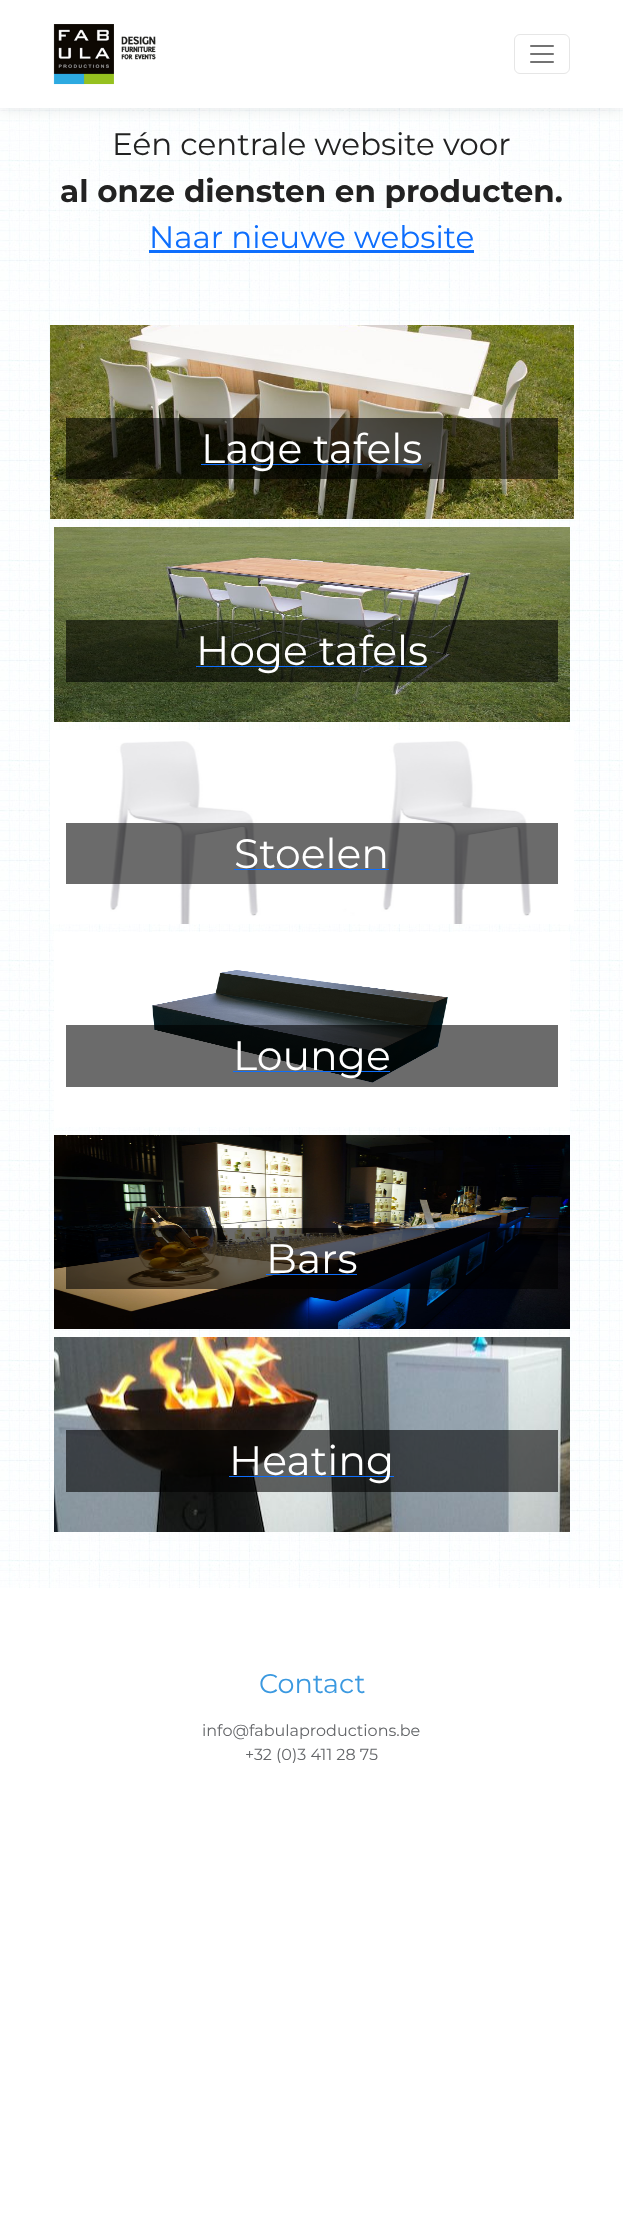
<!DOCTYPE html>
<meta charset="utf-8">
<style>body { margin: 0 } canvas { display: block }</style>
<canvas id="canvas" width="623" height="2234"></canvas>
<img id="img1" src="img_03.png" hidden>
<img id="img2" src="img_01.png" hidden>
<img id="img3" src="img_02.png" hidden>
<img id="img4" src="img_04.png" hidden>
<img id="img5" src="img_05.png" hidden>
<img id="img6" src="img_06.png" hidden>
<img id="img7" src="img_07.png" hidden>
<img id="img8" src="img_08.png" hidden>
<img id="img9" src="img_09.png" hidden>
<script>
window.onload = function () {
	const canvas = document.getElementById("canvas");
	const ctx = canvas.getContext("2d");
	ctx.miterLimit = 4;
	ctx.fontKerning = "normal";
	function txt(s, x, y) {
		ctx.fillText(s, x, y);
	}
	function fill(x, y, w, h) {
		ctx.fillRect(x, y, w, h);
	}
	function img(id, x, y, w, h) {
		ctx.drawImage(document.getElementById(id), x, y, w, h);
	}

	ctx.fillStyle = "#FFFFFF";
	fill(0, 0, 623, 2234);
	img("img1", 0, 108, 623, 1480);
	ctx.fillStyle = "rgba(0, 0, 0, 0.1)";
	ctx.filter = "blur(7.5px)";
	ctx.beginPath();
	ctx.rect(0, 0, 623, 108);
	ctx.fill();
	ctx.filter = "none";
	ctx.fillStyle = "#FFFFFF";
	fill(0, 0, 623, 108);
	img("img2", 53, 24, 103, 61);
	ctx.beginPath();
	ctx.roundRect(514.5, 34.5, 55, 39, 5.5);
	ctx.strokeStyle = "#E6E6E6";
	ctx.stroke();
	img("img3", 530, 45, 24, 18);
	ctx.fillStyle = "#0D6EFD";
	fill(149, 250, 325, 3);
	img("img4", 50, 325, 524, 194);
	ctx.fillStyle = "rgba(0, 0, 0, 0.58)";
	fill(66, 418, 492, 61);
	ctx.fillStyle = "#0D6EFD";
	fill(201, 464, 221, 1);
	img("img5", 54, 527, 516, 195);
	ctx.fillStyle = "rgba(0, 0, 0, 0.58)";
	fill(66, 620, 492, 62);
	ctx.fillStyle = "#0D6EFD";
	fill(196, 666, 231, 1);
	ctx.fillStyle = "#FFFFFF";
	fill(50, 730, 524, 194);
	img("img6", 110, 741, 421, 183);
	ctx.fillStyle = "rgba(0, 0, 0, 0.58)";
	fill(66, 823, 492, 61);
	ctx.fillStyle = "#0D6EFD";
	fill(234, 869, 155, 1);
	img("img7", 54, 932, 516, 195);
	ctx.fillStyle = "rgba(0, 0, 0, 0.58)";
	fill(66, 1025, 492, 62);
	ctx.fillStyle = "#0D6EFD";
	fill(233, 1071, 157, 1);
	img("img8", 54, 1135, 516, 194);
	ctx.fillStyle = "rgba(0, 0, 0, 0.58)";
	fill(66, 1228, 492, 61);
	ctx.fillStyle = "#0D6EFD";
	fill(266, 1274, 91, 1);
	img("img9", 54, 1337, 516, 195);
	ctx.fillStyle = "rgba(0, 0, 0, 0.58)";
	fill(66, 1430, 492, 62);
	ctx.fillStyle = "#0D6EFD";
	fill(229, 1476, 165, 1);
	ctx.font = "31px Montserrat";
	ctx.fillStyle = "#222222";
	txt("Eén centrale website voor", 112, 155);
	ctx.font = "bold 31px Montserrat";
	txt("al onze diensten en producten.", 60, 202);
	ctx.font = "31px Montserrat";
	ctx.fillStyle = "#0D6EFD";
	txt("Naar nieuwe website", 149, 248);
	ctx.font = "41px Montserrat";
	ctx.fillStyle = "#FFFFFF";
	txt("Lage tafels", 201, 463);
	txt("Hoge tafels", 196, 665);
	txt("Stoelen", 234, 868);
	txt("Lounge", 233, 1070);
	txt("Bars", 266, 1273);
	txt("Heating", 229, 1475);
	ctx.font = "27px Montserrat";
	ctx.fillStyle = "#3B99E0";
	txt("Contact", 259, 1693);
	ctx.font = "16px Montserrat";
	ctx.fillStyle = "#646669";
	txt("info@fabulaproductions.be", 202, 1736);
	txt("+32 (0)3 411 28 75", 245, 1760);
};
</script>
